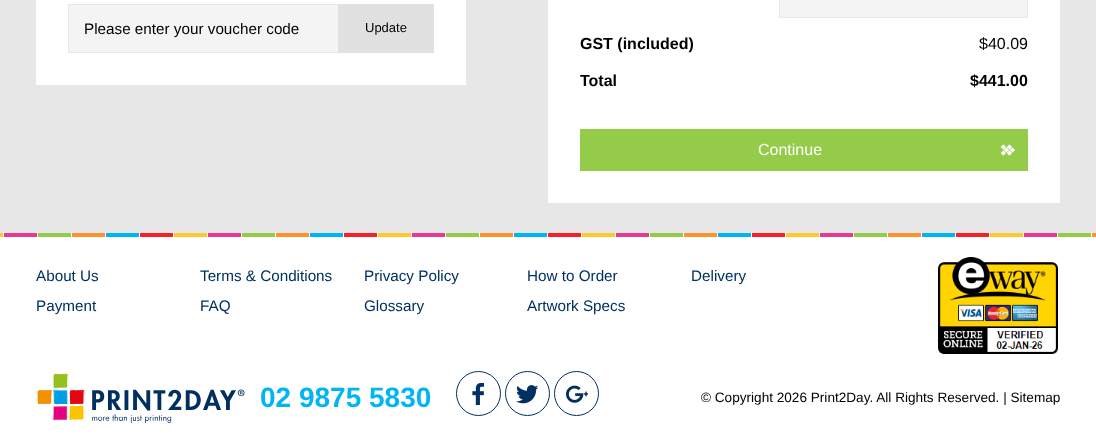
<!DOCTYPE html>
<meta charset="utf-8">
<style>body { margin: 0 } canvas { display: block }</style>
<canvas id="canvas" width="1096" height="440"></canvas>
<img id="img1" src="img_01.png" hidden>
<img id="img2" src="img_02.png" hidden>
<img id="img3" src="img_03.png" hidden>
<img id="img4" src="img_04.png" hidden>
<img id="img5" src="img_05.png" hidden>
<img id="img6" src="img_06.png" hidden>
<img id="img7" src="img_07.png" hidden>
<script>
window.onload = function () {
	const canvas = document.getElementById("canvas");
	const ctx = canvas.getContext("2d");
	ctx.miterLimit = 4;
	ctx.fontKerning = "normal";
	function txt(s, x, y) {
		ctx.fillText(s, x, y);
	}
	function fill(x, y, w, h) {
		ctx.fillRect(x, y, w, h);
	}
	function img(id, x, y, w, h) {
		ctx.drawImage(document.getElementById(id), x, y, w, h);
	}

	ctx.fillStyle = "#E7E7E8";
	fill(0, 0, 1096, 440);
	ctx.fillStyle = "#FFFFFF";
	fill(36, 0, 430, 85);
	ctx.fillStyle = "#F4F4F4";
	fill(69, 5, 269, 47);
	ctx.strokeStyle = "#E7E7E8";
	ctx.strokeRect(68.5, 4.5, 365, 48);
	ctx.fillStyle = "#E1E1E1";
	fill(338, 4, 96, 49);
	ctx.fillStyle = "#FFFFFF";
	fill(548, 0, 512, 203);
	ctx.fillStyle = "#F4F4F4";
	ctx.beginPath();
	ctx.rect(779.5, -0.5, 248, 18);
	ctx.fill();
	ctx.stroke();
	ctx.fillStyle = "#94CB48";
	fill(580, 129, 448, 42);
	img("img1", 1000, 144, 15, 12);
	ctx.fillStyle = "#FFFFFF";
	fill(0, 233, 1096, 207);
	img("img2", 0, 233, 1096, 4);
	img("img3", 938, 257, 120, 97);
	img("img4", 37, 373, 208, 50);
	ctx.beginPath();
	ctx.arc(478.5, 393.5, 22, 0, Math.PI * 2);
	ctx.strokeStyle = "#002F61";
	ctx.stroke();
	img("img5", 472, 383, 12, 22);
	ctx.beginPath();
	ctx.arc(527.5, 393.5, 22, 0, Math.PI * 2);
	ctx.stroke();
	img("img6", 516, 385, 22, 19);
	ctx.beginPath();
	ctx.arc(576.5, 393.5, 22, 0, Math.PI * 2);
	ctx.stroke();
	img("img7", 566, 385, 22, 18);
	ctx.font = "15.25px Liberation Sans";
	ctx.fillStyle = "#000000";
	txt("Please enter your voucher code", 84, 34);
	ctx.font = "13px Liberation Sans";
	txt("Update", 365, 32);
	ctx.font = "bold 16px Liberation Sans";
	txt("GST (included)", 580, 49);
	ctx.font = "16px Liberation Sans";
	txt("$40.09", 979, 49);
	ctx.font = "bold 16px Liberation Sans";
	txt("Total", 580, 86);
	txt("$441.00", 970, 86);
	ctx.font = "16px Liberation Sans";
	ctx.fillStyle = "#FFFFFF";
	txt("Continue", 758, 155);
	ctx.font = "15.25px Liberation Sans";
	ctx.fillStyle = "#002F61";
	txt("About Us", 36, 281);
	txt("Terms & Conditions", 200, 281);
	txt("Privacy Policy", 364, 281);
	txt("How to Order", 527, 281);
	txt("Delivery", 691, 281);
	txt("Payment", 36, 311);
	txt("FAQ", 200, 311);
	txt("Glossary", 364, 311);
	txt("Artwork Specs", 527, 311);
	ctx.font = "bold 28px Liberation Sans";
	ctx.fillStyle = "#00B5F3";
	txt("02 9875 5830", 260, 407);
	ctx.font = "13.6px Liberation Sans";
	ctx.fillStyle = "#000000";
	txt("© Copyright 2026 Print2Day. All Rights Reserved. | Sitemap", 701, 402);
};
</script>
